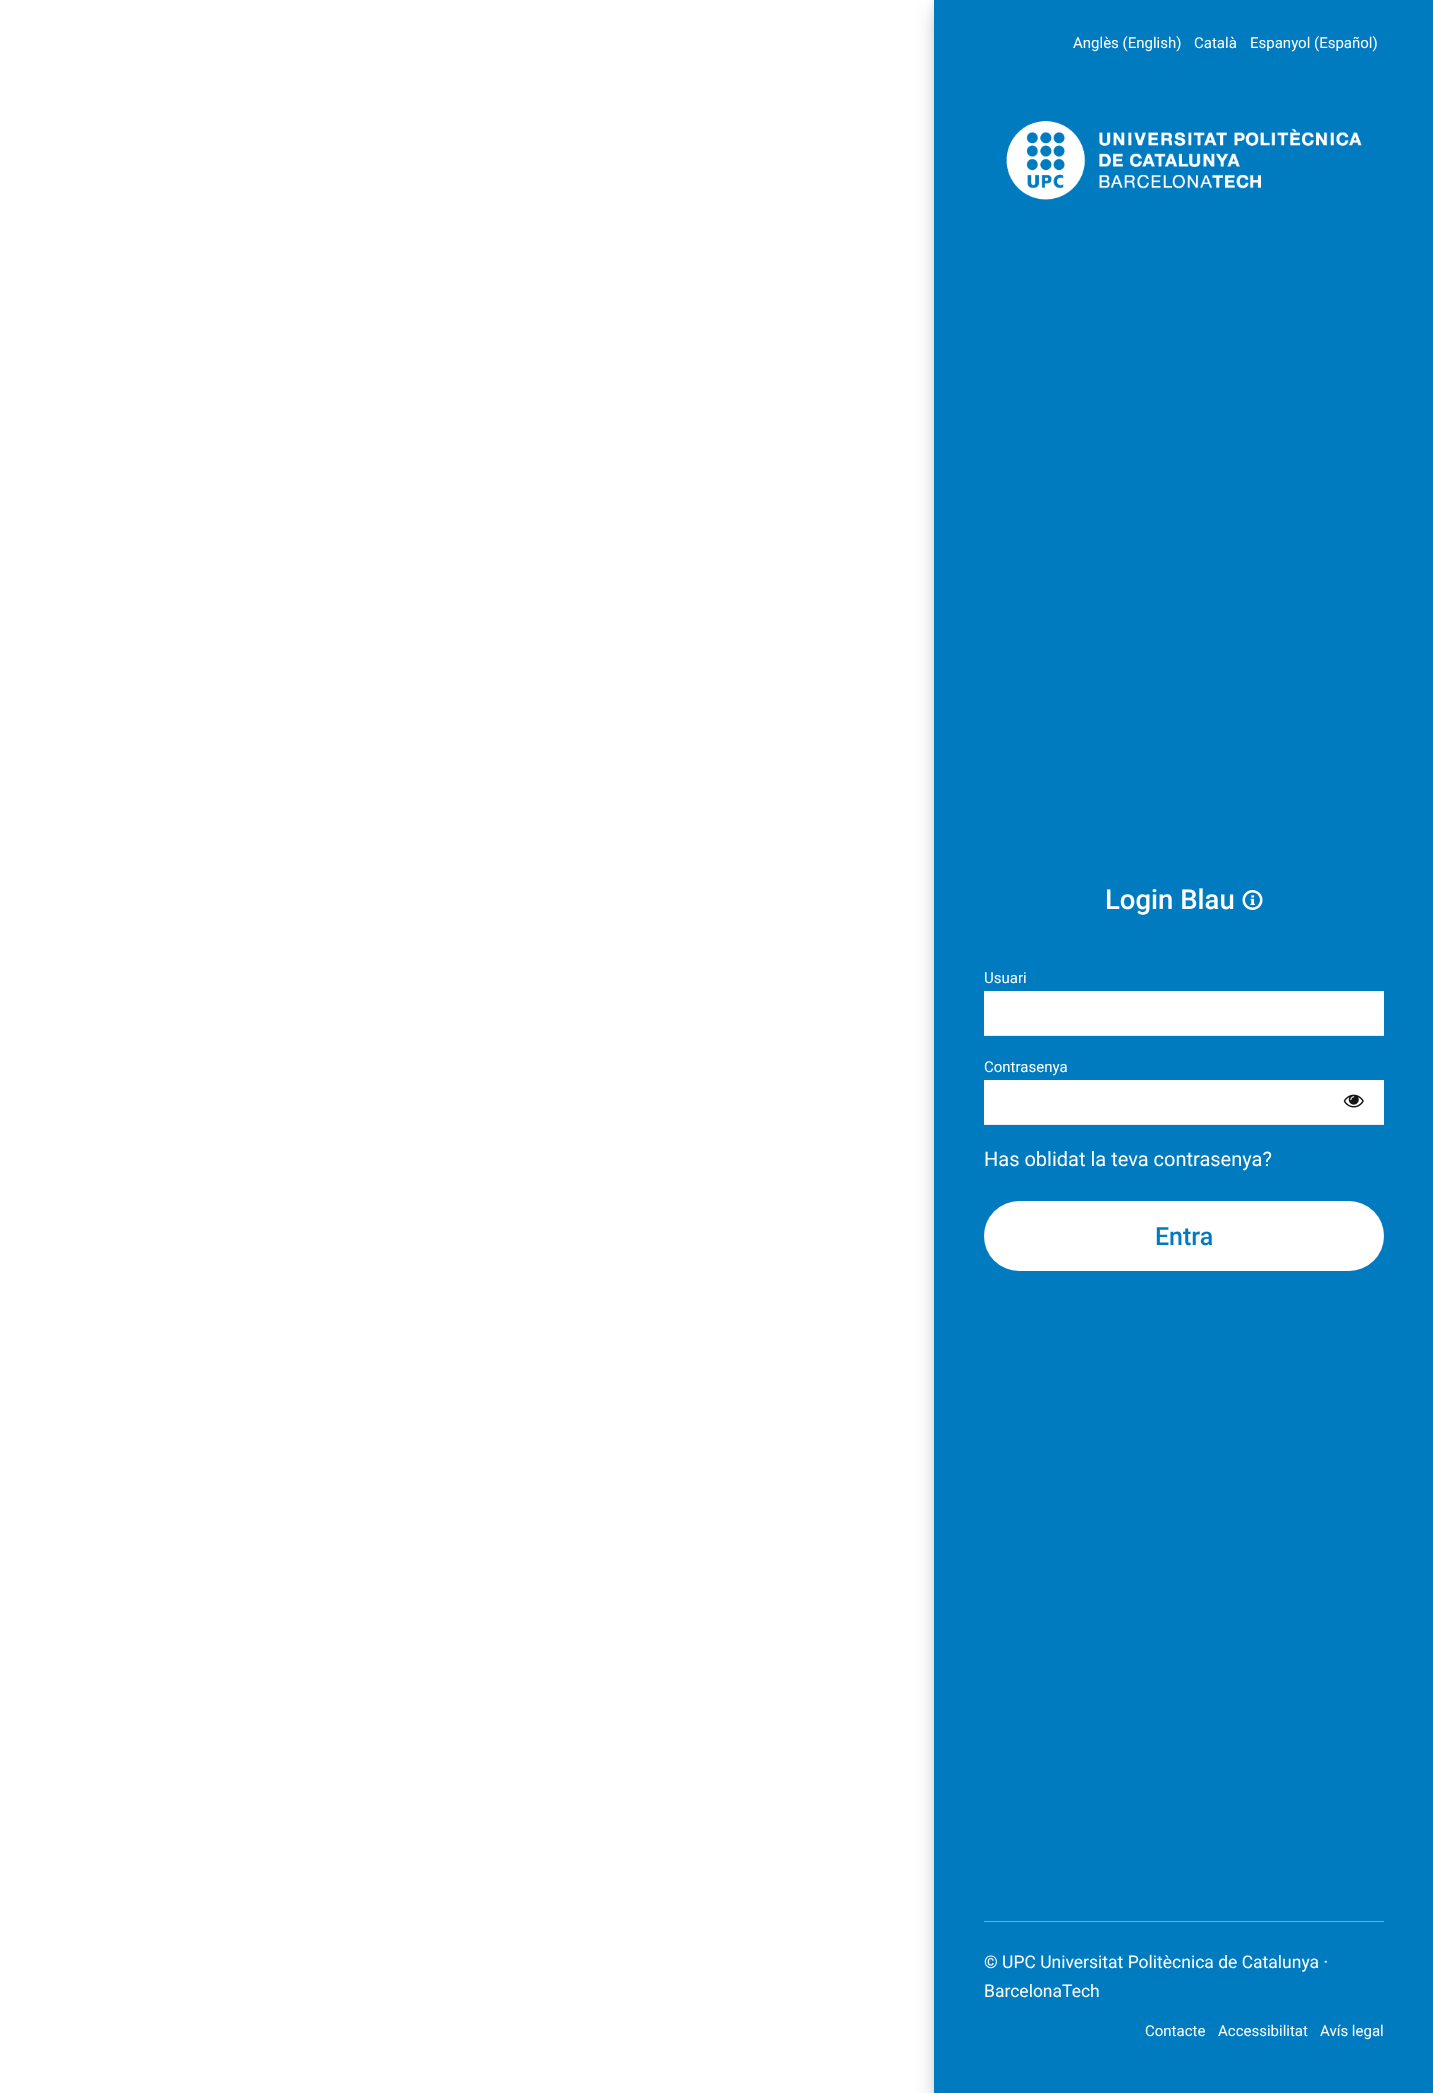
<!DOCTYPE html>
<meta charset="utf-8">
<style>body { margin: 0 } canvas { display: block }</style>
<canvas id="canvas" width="1433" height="2093"></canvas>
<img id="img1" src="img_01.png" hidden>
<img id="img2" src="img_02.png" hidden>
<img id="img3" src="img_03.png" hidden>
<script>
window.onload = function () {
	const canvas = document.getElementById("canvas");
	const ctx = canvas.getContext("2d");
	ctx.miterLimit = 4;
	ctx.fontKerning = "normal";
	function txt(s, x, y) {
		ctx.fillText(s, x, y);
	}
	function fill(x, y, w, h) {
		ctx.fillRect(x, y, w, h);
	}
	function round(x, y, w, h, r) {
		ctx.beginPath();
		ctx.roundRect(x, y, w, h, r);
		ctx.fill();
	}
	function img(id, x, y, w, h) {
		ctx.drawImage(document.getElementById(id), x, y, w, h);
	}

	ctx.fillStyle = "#FFFFFF";
	fill(0, 0, 1433, 2093);
	ctx.fillStyle = "rgba(3, 3, 3, 0.08)";
	ctx.filter = "blur(4px)";
	ctx.beginPath();
	ctx.rect(934, 0, 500, 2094);
	ctx.fill();
	ctx.filter = "none";
	ctx.fillStyle = "rgba(3, 3, 3, 0.16)";
	ctx.filter = "blur(10px)";
	ctx.beginPath();
	ctx.rect(934, 10, 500, 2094);
	ctx.fill();
	ctx.filter = "none";
	ctx.fillStyle = "#007BC0";
	fill(934, 0, 499, 2093);
	img("img1", 1006, 121, 356, 79);
	img("img2", 1242, 890, 21, 20);
	ctx.fillStyle = "#FFFFFF";
	fill(984, 991, 400, 44);
	ctx.fillStyle = "#E9EDF2";
	fill(984, 1035, 400, 1);
	ctx.fillStyle = "#FFFFFF";
	fill(984, 1080, 400, 44);
	img("img3", 1343, 1094, 21, 14);
	ctx.fillStyle = "#E9EDF2";
	fill(984, 1124, 400, 1);
	ctx.fillStyle = "#FFFFFF";
	round(984, 1201, 400, 70, 35);
	ctx.fillStyle = "#66B0D9";
	fill(984, 1921, 400, 1);
	ctx.font = "15px Roboto";
	ctx.fillStyle = "#FFFFFF";
	txt("Anglès (English)", 1073, 48);
	txt("Català", 1194, 48);
	txt("Espanyol (Español)", 1250, 48);
	ctx.font = "500 27.5px Roboto";
	txt("Login Blau", 1105, 909);
	ctx.font = "15px Roboto";
	txt("Usuari", 984, 983);
	txt("Contrasenya", 984, 1072);
	ctx.font = "20px Roboto";
	txt("Has oblidat la teva contrasenya?", 984, 1166);
	ctx.font = "500 25px Roboto";
	ctx.fillStyle = "#007BC0";
	txt("Entra", 1155, 1245);
	ctx.font = "17.5px Roboto";
	ctx.fillStyle = "#FFFFFF";
	txt("© UPC Universitat Politècnica de Catalunya ·", 984, 1968);
	txt("BarcelonaTech", 984, 1997);
	ctx.font = "15px Roboto";
	txt("Contacte", 1145, 2036);
	txt("Accessibilitat", 1218, 2036);
	txt("Avís legal", 1320, 2036);
};
</script>
